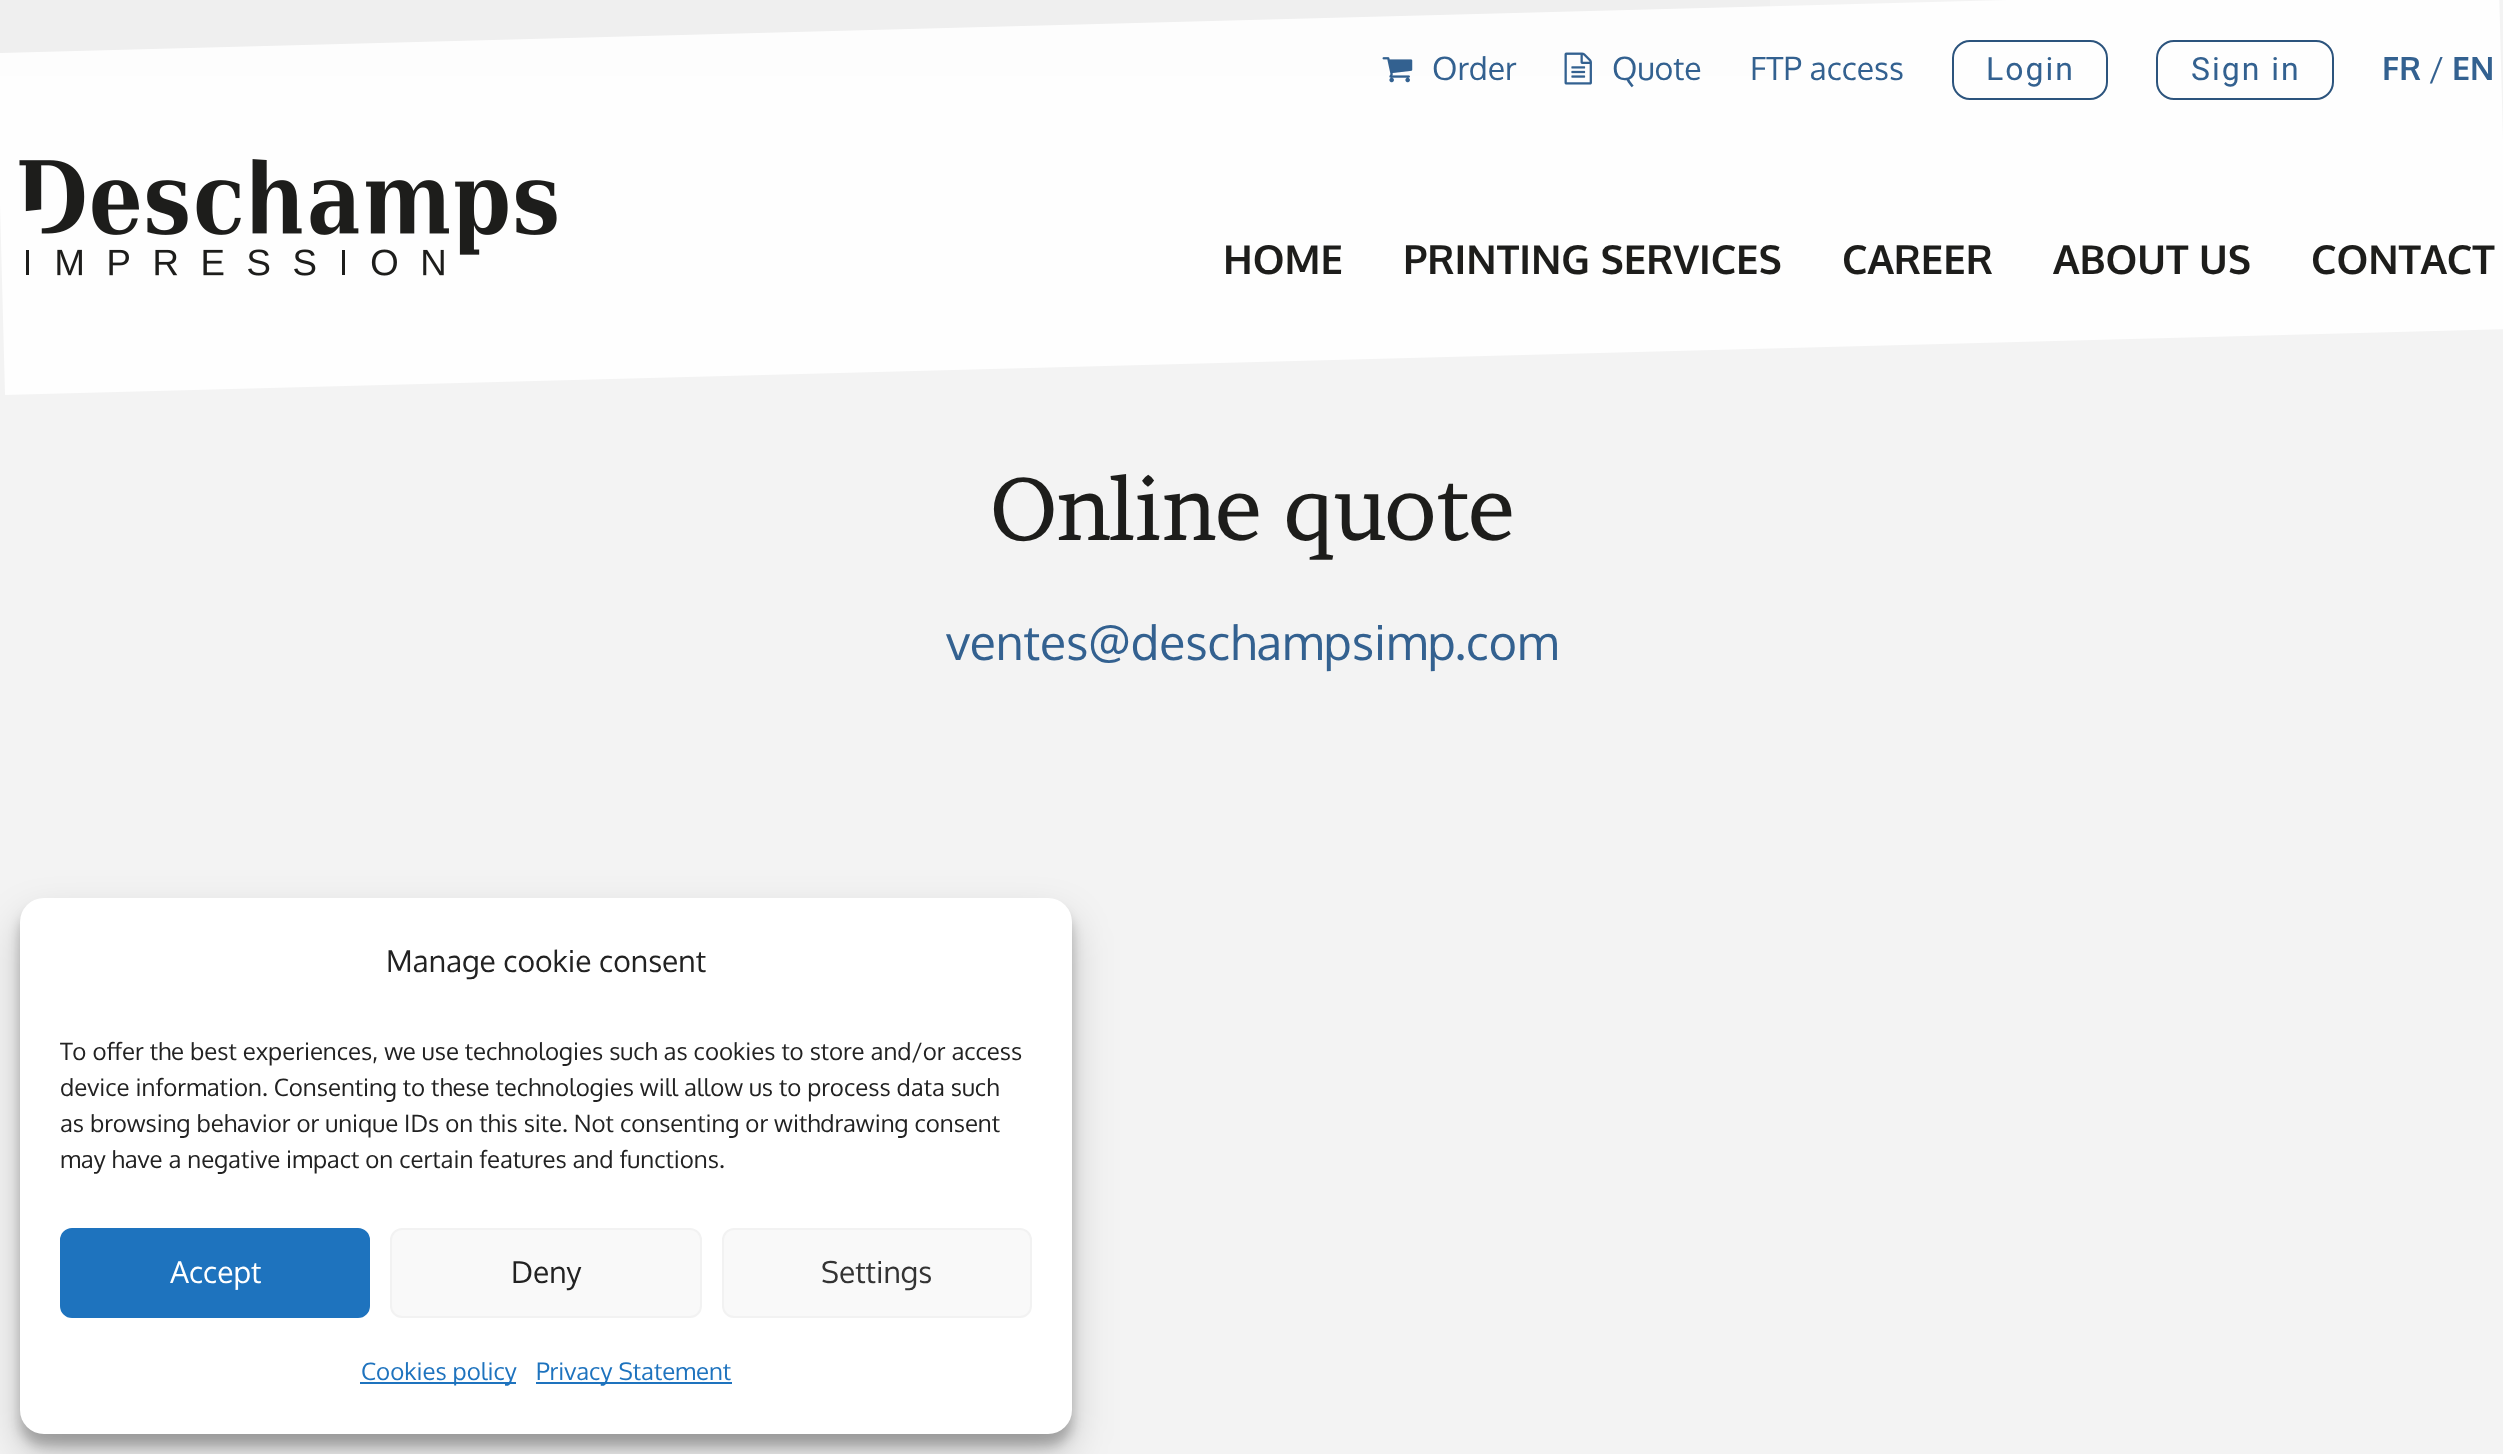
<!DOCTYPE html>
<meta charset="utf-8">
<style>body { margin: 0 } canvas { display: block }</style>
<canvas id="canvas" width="2503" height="1454"></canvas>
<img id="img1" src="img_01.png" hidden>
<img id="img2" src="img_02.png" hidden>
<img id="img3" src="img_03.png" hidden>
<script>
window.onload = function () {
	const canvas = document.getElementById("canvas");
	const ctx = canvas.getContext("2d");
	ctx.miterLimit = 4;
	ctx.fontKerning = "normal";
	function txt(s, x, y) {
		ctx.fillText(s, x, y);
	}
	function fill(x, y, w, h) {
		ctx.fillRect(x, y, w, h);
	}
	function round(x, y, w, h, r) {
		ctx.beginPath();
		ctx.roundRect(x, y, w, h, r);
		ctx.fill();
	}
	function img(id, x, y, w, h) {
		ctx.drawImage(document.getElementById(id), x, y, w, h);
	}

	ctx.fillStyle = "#F3F3F3";
	fill(0, 0, 2503, 1454);
	ctx.fillStyle = "#EFEFEF";
	fill(0, 0, 1770, 76);
	ctx.fillStyle = "rgba(255, 255, 255, 0.86)";
	ctx.beginPath();
	ctx.moveTo(-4, 53);
	ctx.lineTo(2499, -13);
	ctx.lineTo(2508, 329);
	ctx.lineTo(5, 395);
	ctx.closePath();
	ctx.fill();
	img("img1", 1382, 57, 31, 26);
	img("img2", 1564, 52, 28, 33);
	ctx.beginPath();
	ctx.roundRect(1953, 41, 154, 58, 17);
	ctx.strokeStyle = "#2C547D";
	ctx.lineWidth = 2;
	ctx.stroke();
	ctx.beginPath();
	ctx.roundRect(2157, 41, 176, 58, 17);
	ctx.stroke();
	img("img3", 19, 159, 538, 117);
	ctx.fillStyle = "rgba(0, 0, 0, 0.23)";
	ctx.filter = "blur(6px)";
	ctx.beginPath();
	ctx.roundRect(20, 910, 1052, 536, 24);
	ctx.fill();
	ctx.filter = "none";
	ctx.fillStyle = "rgba(0, 0, 0, 0.19)";
	ctx.filter = "blur(20px)";
	ctx.beginPath();
	ctx.roundRect(20, 918, 1052, 536, 24);
	ctx.fill();
	ctx.filter = "none";
	ctx.fillStyle = "#FFFFFF";
	round(20, 898, 1052, 536, 24);
	ctx.fillStyle = "#1E73BE";
	ctx.beginPath();
	ctx.roundRect(61, 1229, 308, 88, 11);
	ctx.fill();
	ctx.strokeStyle = "#1E73BE";
	ctx.stroke();
	ctx.fillStyle = "#F9F9F9";
	ctx.beginPath();
	ctx.roundRect(391, 1229, 310, 88, 11);
	ctx.fill();
	ctx.strokeStyle = "#F2F2F2";
	ctx.stroke();
	ctx.beginPath();
	ctx.roundRect(723, 1229, 308, 88, 11);
	ctx.fill();
	ctx.stroke();
	ctx.fillStyle = "#1E73BE";
	fill(360, 1382, 156, 2);
	fill(536, 1382, 196, 2);
	ctx.font = "32px Oxygen";
	ctx.fillStyle = "#336190";
	txt("Order", 1432, 80);
	txt("Quote", 1612, 80);
	txt("FTP access", 1750, 80);
	ctx.letterSpacing = "2px";
	ctx.font = "32px Roboto";
	txt("Login", 1986, 80);
	txt("Sign in", 2191, 80);
	ctx.letterSpacing = "0px";
	ctx.font = "bold 32px Oxygen";
	txt("FR", 2382, 80);
	ctx.font = "32px Oxygen";
	txt("/", 2429, 80);
	ctx.font = "bold 32px Oxygen";
	txt("EN", 2452, 80);
	ctx.font = "bold 40px Oxygen";
	ctx.fillStyle = "#1D1D1B";
	txt("HOME", 1223, 274);
	txt("PRINTING SERVICES", 1403, 274);
	txt("CAREER", 1842, 274);
	txt("ABOUT US", 2053, 274);
	txt("CONTACT", 2311, 274);
	ctx.font = "88px Brawler";
	txt("Online quote", 990, 540);
	ctx.font = "48px Oxygen";
	ctx.fillStyle = "#336190";
	txt("ventes@deschampsimp.com", 946, 660);
	ctx.font = "30px Oxygen";
	ctx.fillStyle = "#222222";
	txt("Manage cookie consent", 386, 972);
	ctx.font = "24px Oxygen";
	txt("To offer the best experiences, we use technologies such as cookies to store and/or access", 60, 1060);
	txt("device information. Consenting to these technologies will allow us to process data such", 60, 1096);
	txt("as browsing behavior or unique IDs on this site. Not consenting or withdrawing consent", 60, 1132);
	txt("may have a negative impact on certain features and functions.", 60, 1168);
	ctx.font = "30px Oxygen";
	ctx.fillStyle = "#FFFFFF";
	txt("Accept", 170, 1283);
	ctx.fillStyle = "#222222";
	txt("Deny", 511, 1283);
	ctx.fillStyle = "#333333";
	txt("Settings", 821, 1283);
	ctx.font = "24px Oxygen";
	ctx.fillStyle = "#1E73BE";
	txt("Cookies policy", 361, 1380);
	txt("Privacy Statement", 536, 1380);
};
</script>
